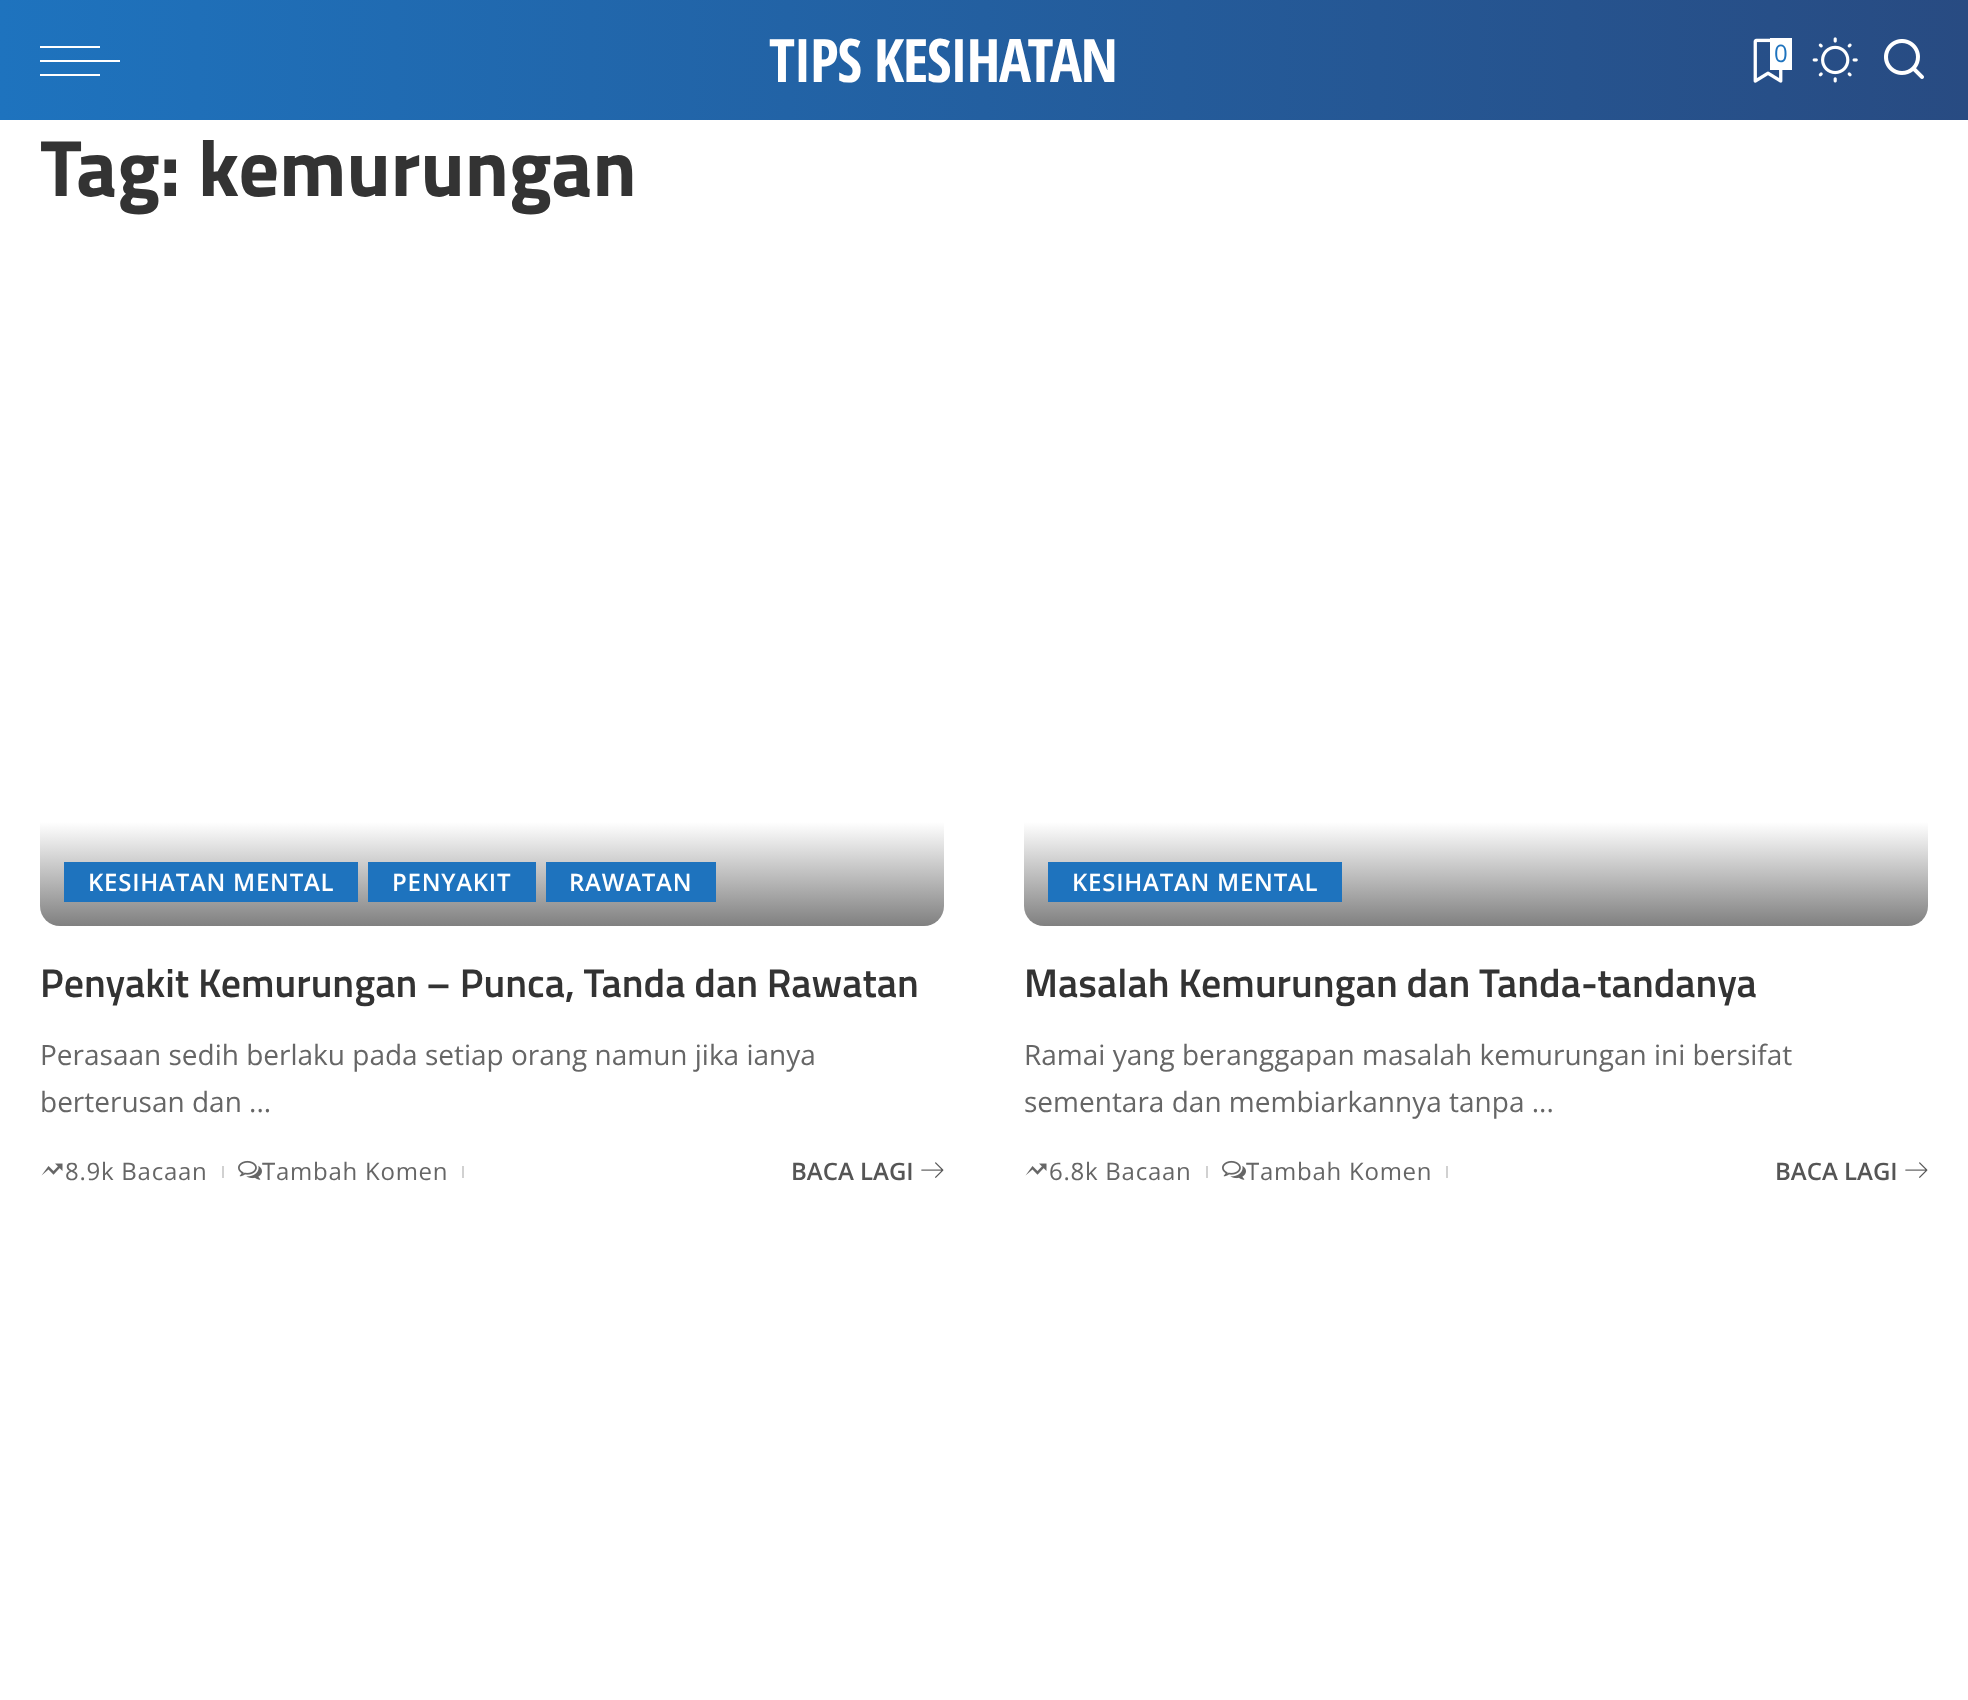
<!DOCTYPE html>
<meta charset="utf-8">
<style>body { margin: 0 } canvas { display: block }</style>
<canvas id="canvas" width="1968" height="1700"></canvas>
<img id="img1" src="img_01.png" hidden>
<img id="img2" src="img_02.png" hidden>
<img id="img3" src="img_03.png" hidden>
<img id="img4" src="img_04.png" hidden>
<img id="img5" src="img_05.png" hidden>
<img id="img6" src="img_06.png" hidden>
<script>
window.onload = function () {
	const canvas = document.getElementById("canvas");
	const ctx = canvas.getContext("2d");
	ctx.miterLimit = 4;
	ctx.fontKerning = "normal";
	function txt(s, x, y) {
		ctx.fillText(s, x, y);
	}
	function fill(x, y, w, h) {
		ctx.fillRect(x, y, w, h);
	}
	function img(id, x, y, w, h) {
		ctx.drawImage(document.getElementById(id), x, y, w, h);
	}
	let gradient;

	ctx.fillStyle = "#FFFFFF";
	fill(0, 0, 1968, 1700);
	gradient = ctx.createLinearGradient(0, 60, 1968, 60);
	gradient.addColorStop(0, "#1E73BE");
	gradient.addColorStop(1, "#284B82");
	ctx.fillStyle = gradient;
	fill(0, 0, 1968, 120);
	ctx.fillStyle = "#FFFFFF";
	fill(40, 60, 80, 2);
	fill(40, 46, 60, 2);
	fill(40, 74, 60, 2);
	img("img1", 1753, 38, 30, 45);
	fill(1770, 38, 22, 32);
	img("img2", 1812, 37, 46, 46);
	img("img3", 1884, 39, 40, 40);
	gradient = ctx.createLinearGradient(492, 822, 492, 926);
	gradient.addColorStop(0, "#FFFFFF");
	gradient.addColorStop(1, "#808080");
	ctx.fillStyle = gradient;
	ctx.beginPath();
	ctx.roundRect(40, 822, 904, 104, [0, 0, 20, 20]);
	ctx.fill();
	ctx.fillStyle = "#1E73BE";
	fill(64, 862, 294, 40);
	fill(368, 862, 168, 40);
	fill(546, 862, 170, 40);
	img("img4", 41, 1163, 22, 13);
	ctx.fillStyle = "#D1D1D1";
	fill(222, 1166, 2, 12);
	img("img5", 238, 1160, 24, 20);
	fill(462, 1166, 2, 12);
	img("img6", 921, 1162, 23, 16);
	gradient = ctx.createLinearGradient(1476, 822, 1476, 926);
	gradient.addColorStop(0, "#FFFFFF");
	gradient.addColorStop(1, "#808080");
	ctx.fillStyle = gradient;
	ctx.beginPath();
	ctx.roundRect(1024, 822, 904, 104, [0, 0, 20, 20]);
	ctx.fill();
	ctx.fillStyle = "#1E73BE";
	fill(1048, 862, 294, 40);
	img("img4", 1025, 1163, 22, 13);
	ctx.fillStyle = "#D1D1D1";
	fill(1206, 1166, 2, 12);
	img("img5", 1222, 1160, 24, 20);
	fill(1446, 1166, 2, 12);
	img("img6", 1905, 1162, 23, 16);
	ctx.letterSpacing = "-1.5px";
	ctx.font = "bold 60px Open Sans Condensed";
	ctx.fillStyle = "#FFFFFF";
	txt("TIPS KESIHATAN", 769, 82);
	ctx.letterSpacing = "0px";
	ctx.font = "24px Open Sans";
	ctx.fillStyle = "#1E73BE";
	txt("0", 1774, 62);
	ctx.font = "bold 80px Titillium Web";
	ctx.fillStyle = "#333333";
	txt("Tag: kemurungan", 40, 196);
	ctx.letterSpacing = "0.75px";
	ctx.font = "600 24px Open Sans";
	ctx.fillStyle = "#FFFFFF";
	txt("KESIHATAN MENTAL", 88, 891);
	txt("PENYAKIT", 392, 891);
	txt("RAWATAN", 569, 891);
	ctx.letterSpacing = "0px";
	ctx.font = "600 40px Titillium Web";
	ctx.fillStyle = "#333333";
	txt("Penyakit Kemurungan – Punca, Tanda dan Rawatan", 40, 997);
	ctx.font = "28px Open Sans";
	ctx.fillStyle = "#666666";
	txt("Perasaan sedih berlaku pada setiap orang namun jika ianya", 40, 1065);
	txt("berterusan dan ...", 40, 1112);
	ctx.letterSpacing = "0.75px";
	ctx.font = "24px Open Sans";
	txt("8.9k Bacaan", 65, 1180);
	txt("Tambah Komen", 262, 1180);
	ctx.letterSpacing = "0px";
	ctx.font = "600 24px Open Sans";
	ctx.fillStyle = "#555555";
	txt("BACA LAGI", 791, 1180);
	ctx.letterSpacing = "0.75px";
	ctx.fillStyle = "#FFFFFF";
	txt("KESIHATAN MENTAL", 1072, 891);
	ctx.letterSpacing = "0px";
	ctx.font = "600 40px Titillium Web";
	ctx.fillStyle = "#333333";
	txt("Masalah Kemurungan dan Tanda-tandanya", 1024, 997);
	ctx.font = "28px Open Sans";
	ctx.fillStyle = "#666666";
	txt("Ramai yang beranggapan masalah kemurungan ini bersifat", 1024, 1065);
	txt("sementara dan membiarkannya tanpa ...", 1024, 1112);
	ctx.letterSpacing = "0.75px";
	ctx.font = "24px Open Sans";
	txt("6.8k Bacaan", 1049, 1180);
	txt("Tambah Komen", 1246, 1180);
	ctx.letterSpacing = "0px";
	ctx.font = "600 24px Open Sans";
	ctx.fillStyle = "#555555";
	txt("BACA LAGI", 1775, 1180);
};
</script>
